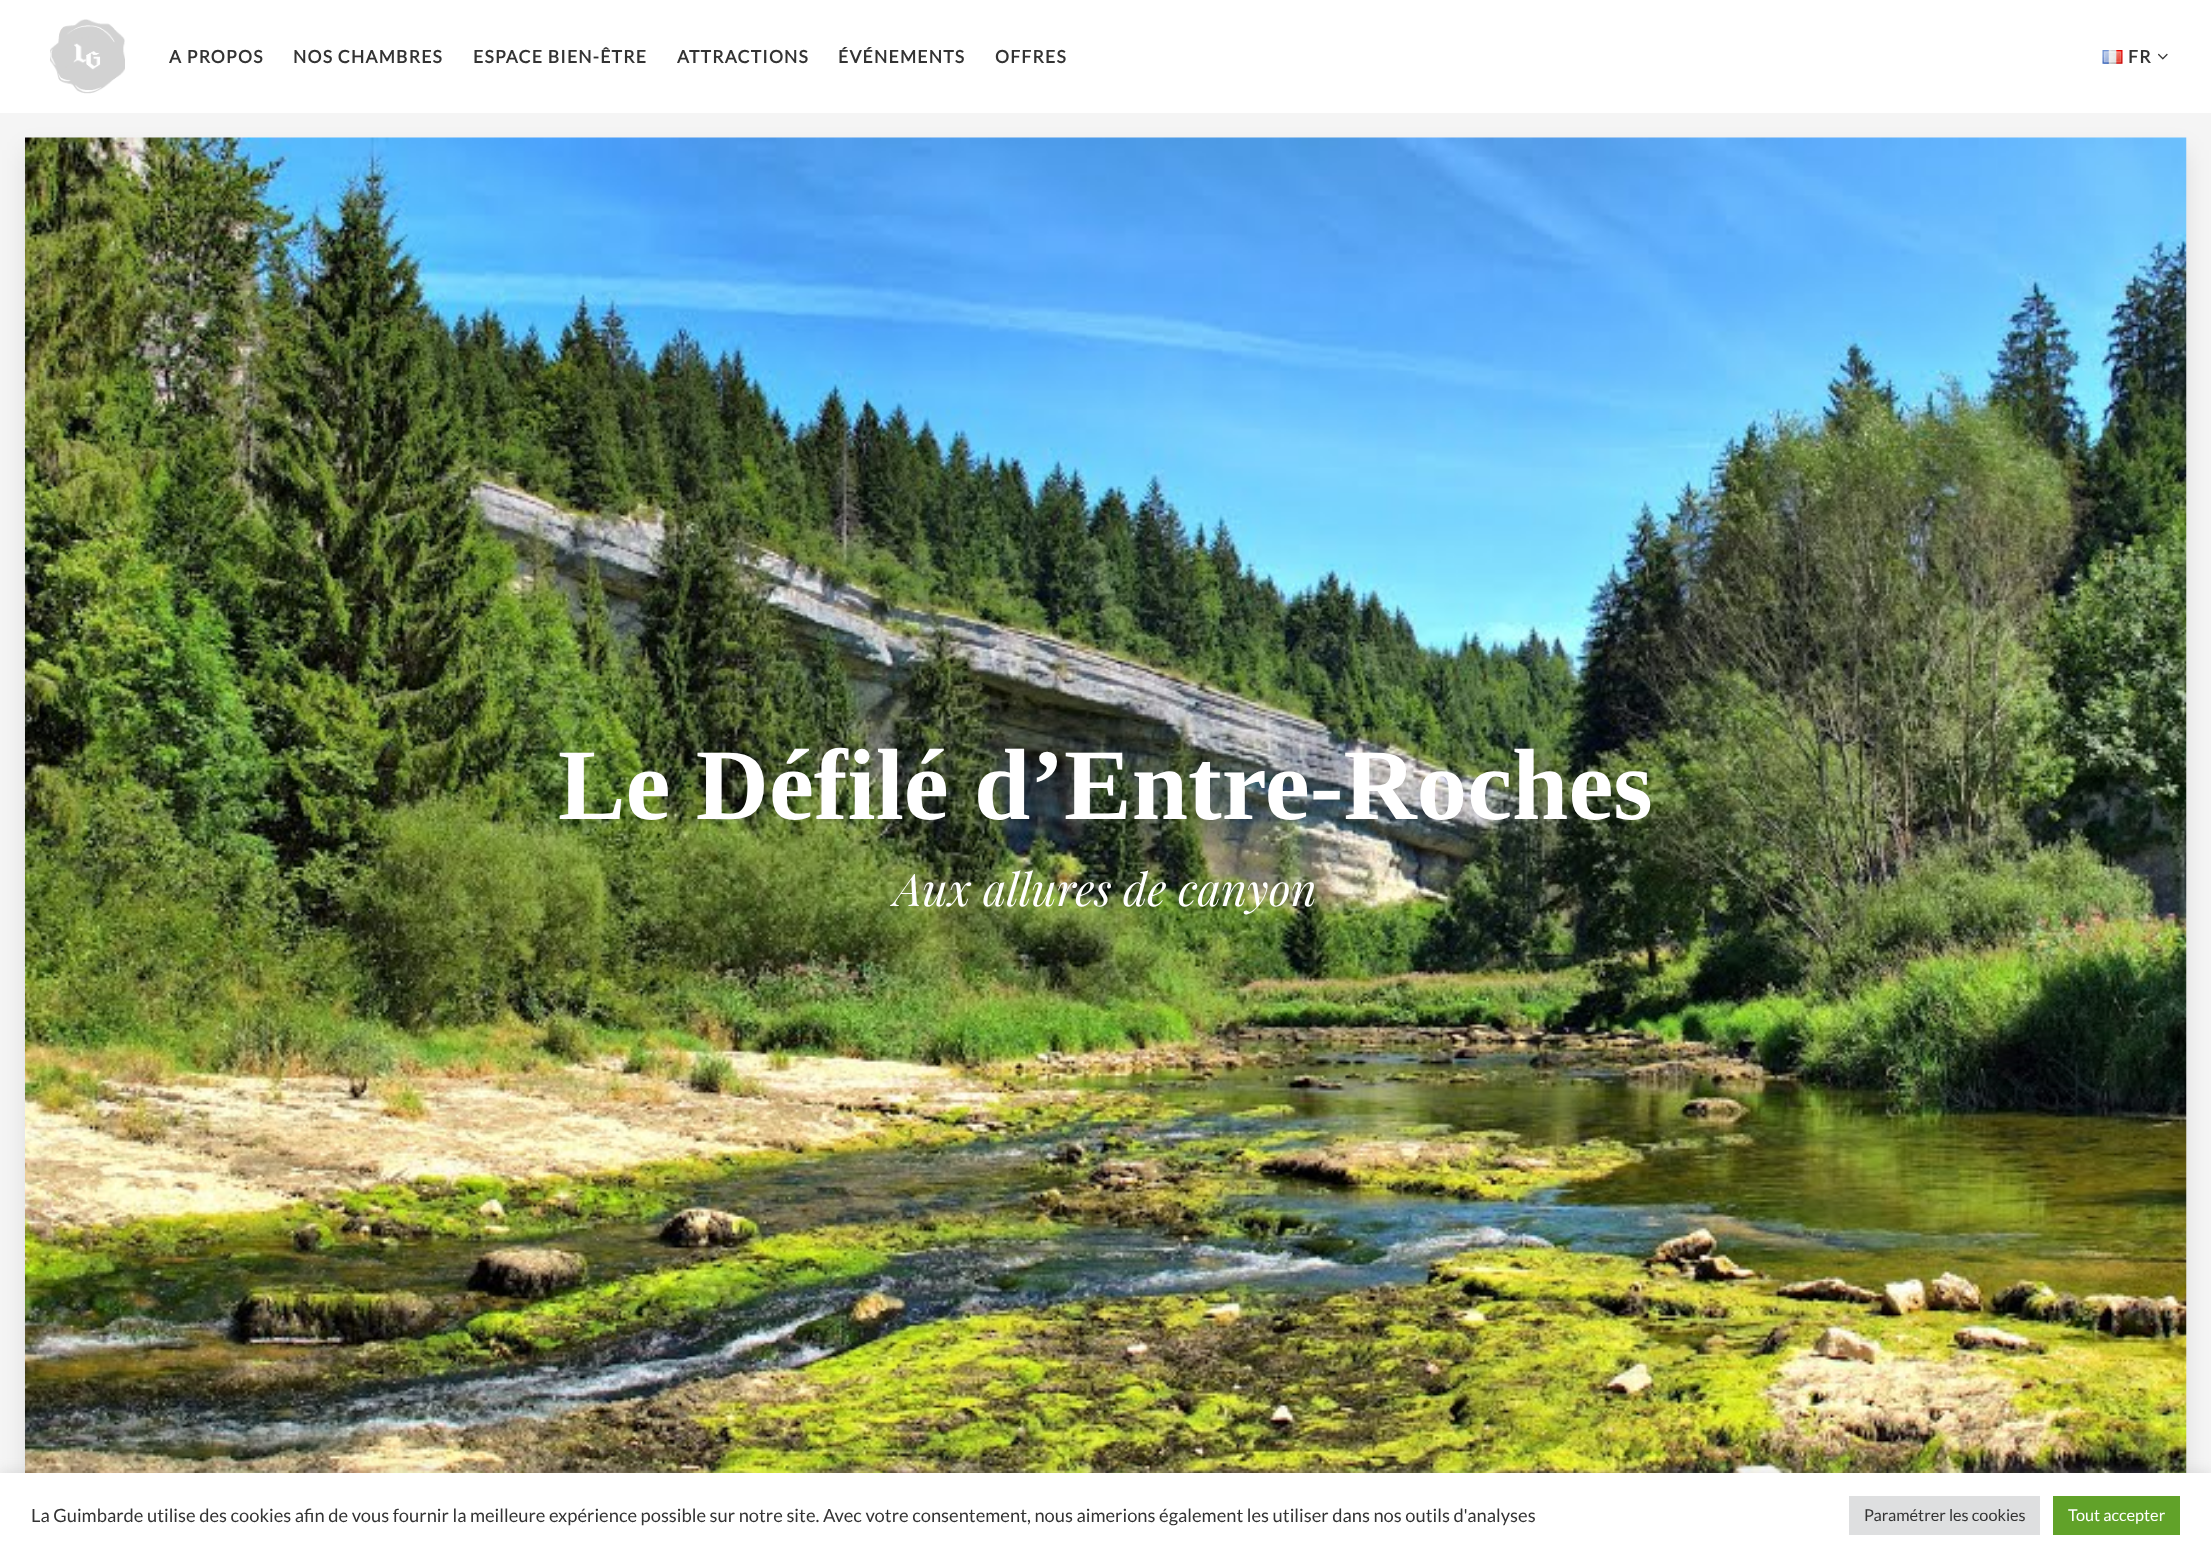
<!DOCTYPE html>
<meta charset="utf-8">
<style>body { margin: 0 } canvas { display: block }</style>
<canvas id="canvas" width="2211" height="1558"></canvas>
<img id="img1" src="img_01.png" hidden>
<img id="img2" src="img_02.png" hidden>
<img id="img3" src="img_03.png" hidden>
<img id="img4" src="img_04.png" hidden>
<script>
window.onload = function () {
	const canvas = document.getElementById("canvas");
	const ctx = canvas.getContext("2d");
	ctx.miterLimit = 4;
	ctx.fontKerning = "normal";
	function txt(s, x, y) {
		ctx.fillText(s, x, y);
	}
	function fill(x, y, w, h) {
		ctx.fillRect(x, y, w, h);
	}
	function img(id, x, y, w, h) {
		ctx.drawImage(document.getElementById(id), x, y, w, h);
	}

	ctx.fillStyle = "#F5F5F5";
	fill(0, 0, 2211, 1558);
	ctx.fillStyle = "rgba(0, 0, 0, 0.1)";
	ctx.filter = "blur(12.5px)";
	ctx.beginPath();
	ctx.rect(25, 150, 2161, 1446);
	ctx.fill();
	ctx.filter = "none";
	ctx.fillStyle = "#FFFFFF";
	fill(0, 0, 2211, 113);
	img("img1", 50, 19, 75, 75);
	img("img2", 2102, 50, 21, 14);
	img("img3", 2158, 53, 10, 7);
	img("img4", 25, 137, 2162, 1336);
	ctx.fillStyle = "rgba(172, 171, 171, 0.3)";
	ctx.filter = "blur(6px)";
	ctx.beginPath();
	ctx.rect(0, 1471, 2211, 87);
	ctx.fill();
	ctx.filter = "none";
	ctx.fillStyle = "#FFFFFF";
	fill(0, 1473, 2211, 85);
	ctx.fillStyle = "#DEDFE0";
	fill(1849, 1496, 191, 39);
	ctx.fillStyle = "#61A229";
	fill(2053, 1496, 127, 39);
	ctx.letterSpacing = "1.25px";
	ctx.font = "bold 17.5px Lato";
	ctx.fillStyle = "#333333";
	txt("A PROPOS", 169, 63);
	txt("NOS CHAMBRES", 293, 63);
	txt("ESPACE BIEN-ÊTRE", 473, 63);
	txt("ATTRACTIONS", 677, 63);
	txt("ÉVÉNEMENTS", 838, 63);
	txt("OFFRES", 995, 63);
	txt("FR", 2128, 63);
	ctx.letterSpacing = "0px";
	ctx.font = "bold 101.25px Liberation Serif";
	ctx.fillStyle = "#FFFFFF";
	txt("Le Défilé d’Entre-Roches", 558, 819);
	ctx.font = "italic 45px Playfair Display";
	txt("Aux allures de canyon", 894, 906);
	ctx.font = "18.33px Lato";
	ctx.fillStyle = "#333333";
	txt("La Guimbarde utilise des cookies afin de vous fournir la meilleure expérience possible sur notre site. Avec votre consentement, nous aimerions également les utiliser dans nos outils d'analyses", 31, 1522);
	ctx.font = "16.25px Lato";
	txt("Paramétrer les cookies", 1864, 1521);
	ctx.fillStyle = "#FFFFFF";
	txt("Tout accepter", 2068, 1521);
};
</script>
